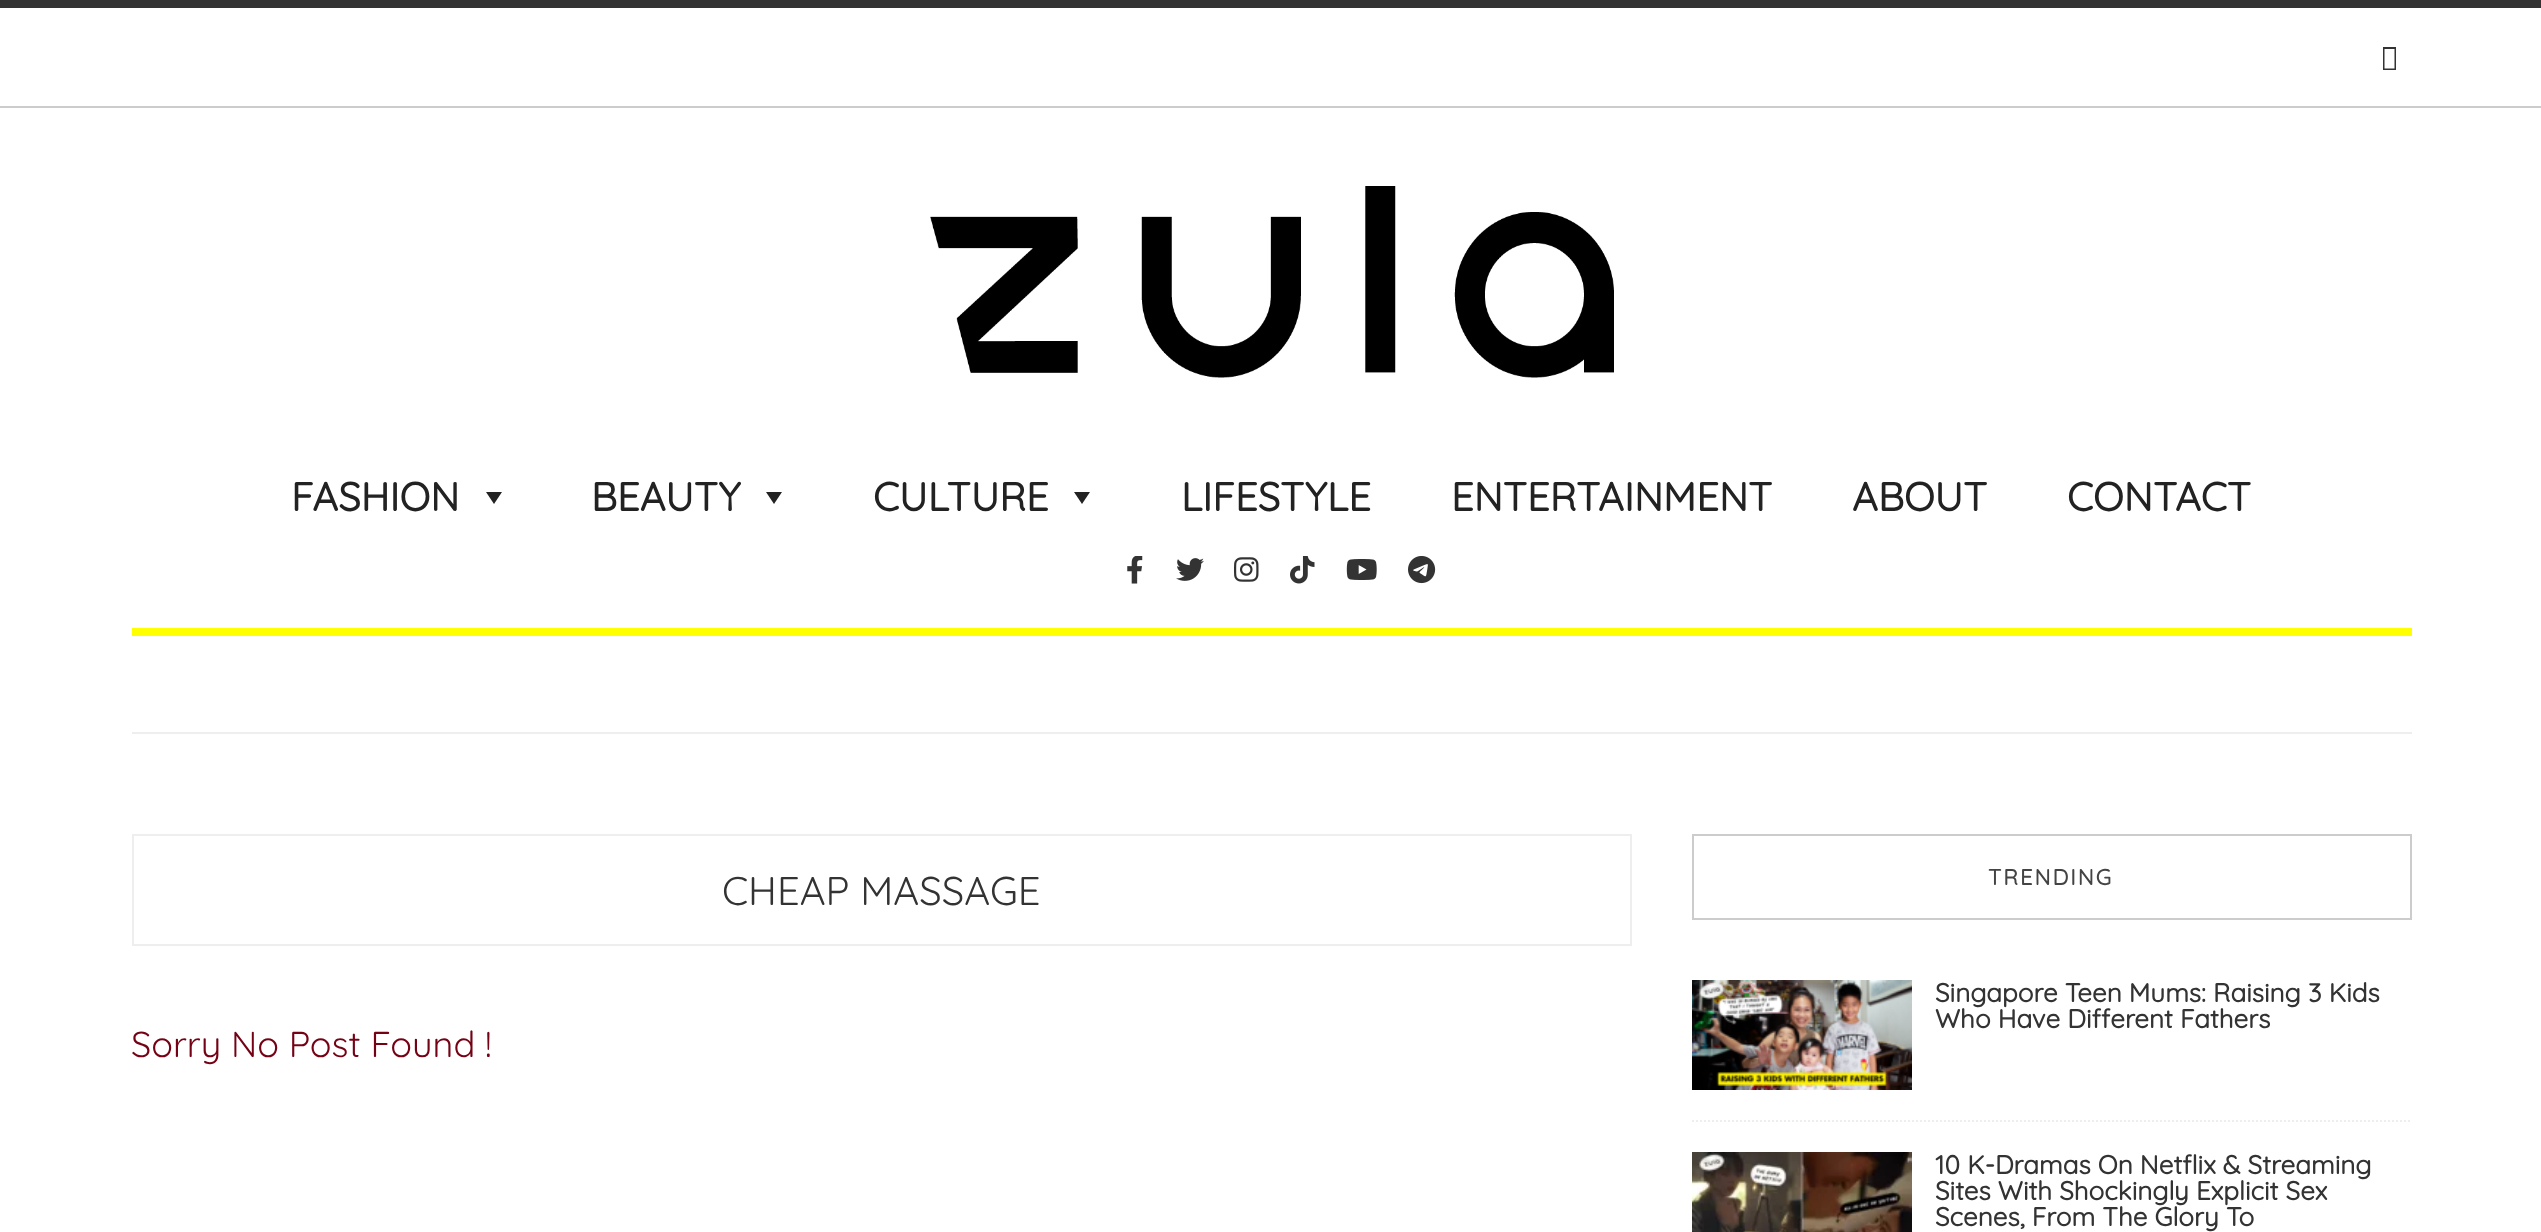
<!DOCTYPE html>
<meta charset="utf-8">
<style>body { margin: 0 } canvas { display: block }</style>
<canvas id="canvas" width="2541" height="1232"></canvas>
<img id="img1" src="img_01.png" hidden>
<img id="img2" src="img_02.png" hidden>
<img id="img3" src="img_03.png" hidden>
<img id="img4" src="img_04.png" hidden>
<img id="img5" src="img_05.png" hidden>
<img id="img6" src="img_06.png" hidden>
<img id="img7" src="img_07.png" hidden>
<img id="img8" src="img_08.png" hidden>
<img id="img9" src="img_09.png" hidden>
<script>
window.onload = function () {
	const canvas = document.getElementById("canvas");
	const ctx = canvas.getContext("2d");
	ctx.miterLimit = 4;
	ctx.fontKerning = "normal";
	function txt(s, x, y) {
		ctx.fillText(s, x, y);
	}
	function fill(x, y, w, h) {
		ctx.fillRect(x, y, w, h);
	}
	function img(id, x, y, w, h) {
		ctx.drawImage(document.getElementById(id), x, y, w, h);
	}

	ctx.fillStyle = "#FFFFFF";
	fill(0, 0, 2541, 1232);
	ctx.fillStyle = "#333333";
	fill(0, 0, 2541, 8);
	ctx.fillStyle = "#CCCCCC";
	fill(0, 106, 2541, 2);
	ctx.fillStyle = "#333333";
	ctx.beginPath();
	ctx.moveTo(2383, 70);
	ctx.lineTo(2383, 47);
	ctx.lineTo(2396, 47);
	ctx.lineTo(2396, 70);
	ctx.closePath();
	ctx.moveTo(2384.5, 68.5);
	ctx.lineTo(2394.5, 68.5);
	ctx.lineTo(2394.5, 49);
	ctx.lineTo(2384.5, 49);
	ctx.closePath();
	ctx.fill();
	ctx.fillStyle = "#EEEEEE";
	fill(132, 732, 2280, 2);
	img("img1", 930, 186, 684, 192);
	ctx.fillStyle = "#222222";
	ctx.beginPath();
	ctx.moveTo(502, 492);
	ctx.lineTo(494, 504);
	ctx.lineTo(486, 492);
	ctx.closePath();
	ctx.fill();
	ctx.beginPath();
	ctx.moveTo(782, 492);
	ctx.lineTo(774, 504);
	ctx.lineTo(766, 492);
	ctx.closePath();
	ctx.fill();
	ctx.beginPath();
	ctx.moveTo(1090, 492);
	ctx.lineTo(1082, 504);
	ctx.lineTo(1074, 492);
	ctx.closePath();
	ctx.fill();
	img("img2", 1127, 556, 16, 28);
	img("img3", 1176, 558, 28, 23);
	img("img4", 1234, 557, 25, 25);
	img("img5", 1290, 556, 25, 28);
	img("img6", 1346, 559, 31, 21);
	img("img7", 1408, 556, 28, 28);
	ctx.fillStyle = "#FFFF00";
	fill(132, 628, 2280, 8);
	ctx.strokeStyle = "#EEEEEE";
	ctx.lineWidth = 2;
	ctx.strokeRect(133, 835, 1498, 110);
	ctx.strokeStyle = "#CCCCCC";
	ctx.strokeRect(1693, 835, 718, 84);
	ctx.beginPath();
	ctx.moveTo(1692, 1121);
	ctx.lineTo(2412, 1121);
	ctx.strokeStyle = "#EEEEEE";
	ctx.setLineDash([2, 2]);
	ctx.stroke();
	img("img8", 1692, 980, 220, 110);
	img("img9", 1692, 1152, 220, 80);
	ctx.font = "bold 40px Quicksand";
	ctx.fillStyle = "#222222";
	txt("FASHION", 291, 511);
	txt("BEAUTY", 591, 511);
	txt("CULTURE", 873, 511);
	txt("LIFESTYLE", 1181, 511);
	txt("ENTERTAINMENT", 1451, 511);
	txt("ABOUT", 1852, 511);
	txt("CONTACT", 2067, 511);
	ctx.font = "300 40px Quicksand";
	ctx.fillStyle = "#333333";
	txt("CHEAP MASSAGE", 722, 905);
	ctx.font = "300 36px Quicksand";
	ctx.fillStyle = "#740114";
	txt("Sorry No Post Found !", 131, 1057);
	ctx.letterSpacing = "2px";
	ctx.font = "bold 22px Quicksand";
	ctx.fillStyle = "#444444";
	txt("TRENDING", 1988, 885);
	ctx.letterSpacing = "0px";
	ctx.font = "bold 26px Quicksand";
	ctx.fillStyle = "#333333";
	txt("Singapore Teen Mums: Raising 3 Kids", 1935, 1002);
	txt("Who Have Different Fathers", 1935, 1028);
	txt("10 K-Dramas On Netflix & Streaming", 1935, 1174);
	txt("Sites With Shockingly Explicit Sex", 1935, 1200);
	txt("Scenes, From The Glory To", 1935, 1226);
};
</script>
